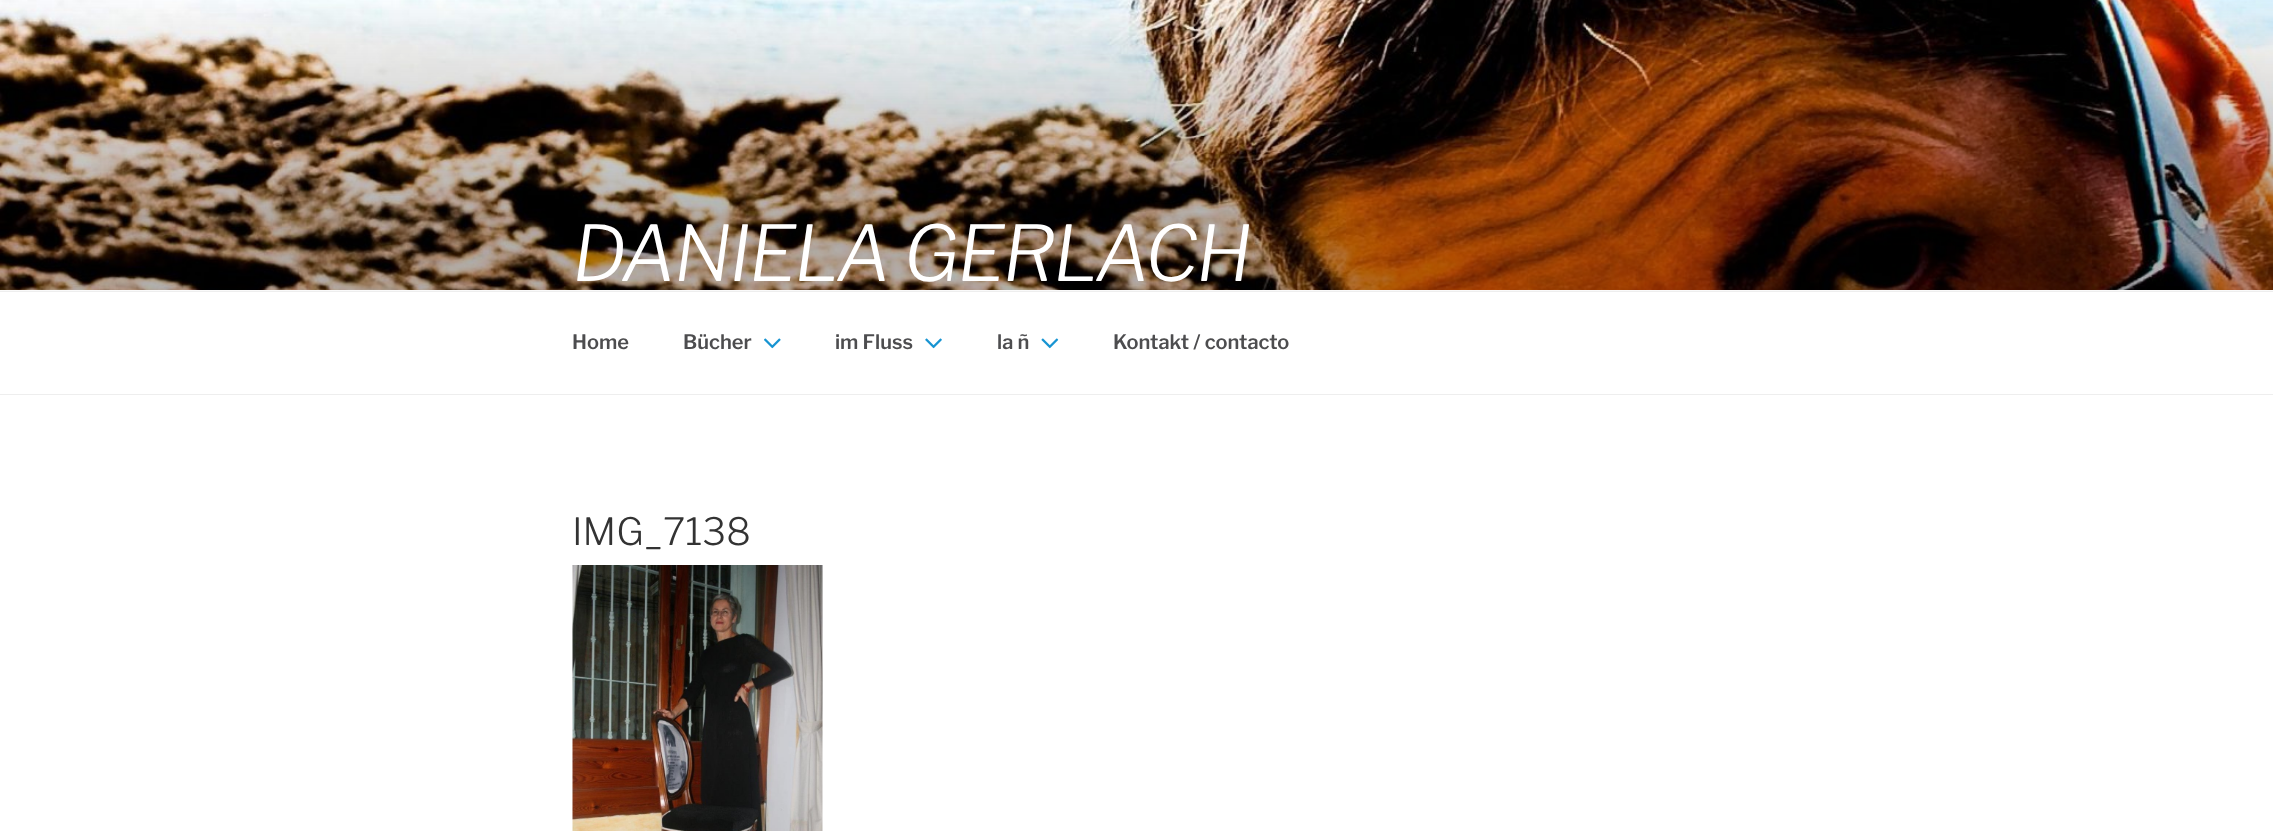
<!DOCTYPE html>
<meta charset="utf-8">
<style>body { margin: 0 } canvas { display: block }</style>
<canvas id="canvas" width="2273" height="831"></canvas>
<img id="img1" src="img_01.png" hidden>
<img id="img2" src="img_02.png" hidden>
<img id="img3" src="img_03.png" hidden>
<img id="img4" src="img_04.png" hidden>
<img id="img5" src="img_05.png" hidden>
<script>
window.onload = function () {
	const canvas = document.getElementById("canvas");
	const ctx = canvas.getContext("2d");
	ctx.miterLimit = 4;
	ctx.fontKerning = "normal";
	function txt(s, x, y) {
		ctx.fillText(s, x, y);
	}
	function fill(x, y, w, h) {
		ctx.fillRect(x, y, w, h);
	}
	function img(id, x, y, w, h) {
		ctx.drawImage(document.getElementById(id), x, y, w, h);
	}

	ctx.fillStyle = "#FFFFFF";
	fill(0, 0, 2273, 831);
	ctx.fillStyle = "#FAFAFA";
	fill(0, 290, 2273, 1);
	img("img1", 0, 0, 2273, 290);
	ctx.fillStyle = "#EEEEEE";
	fill(0, 291, 2273, 1);
	fill(0, 394, 2273, 1);
	img("img2", 764, 338, 17, 11);
	img("img3", 925, 338, 17, 11);
	img("img4", 1041, 338, 18, 11);
	img("img5", 572, 565, 251, 266);
	ctx.letterSpacing = "-2.25px";
	ctx.font = "italic 100 76.5px Libre Franklin";
	ctx.fillStyle = "#FFFFFF";
	txt("DANIELA GERLACH", 572, 281);
	ctx.letterSpacing = "0px";
	ctx.font = "600 20px Libre Franklin";
	ctx.fillStyle = "#4D4D4F";
	txt("Home", 572, 349);
	txt("Bücher", 683, 349);
	txt("im Fluss", 835, 349);
	txt("la ñ", 997, 349);
	txt("Kontakt / contacto", 1113, 349);
	ctx.font = "100 37.5px Libre Franklin";
	ctx.fillStyle = "#333333";
	txt("IMG_7138", 572, 545);
};
</script>
